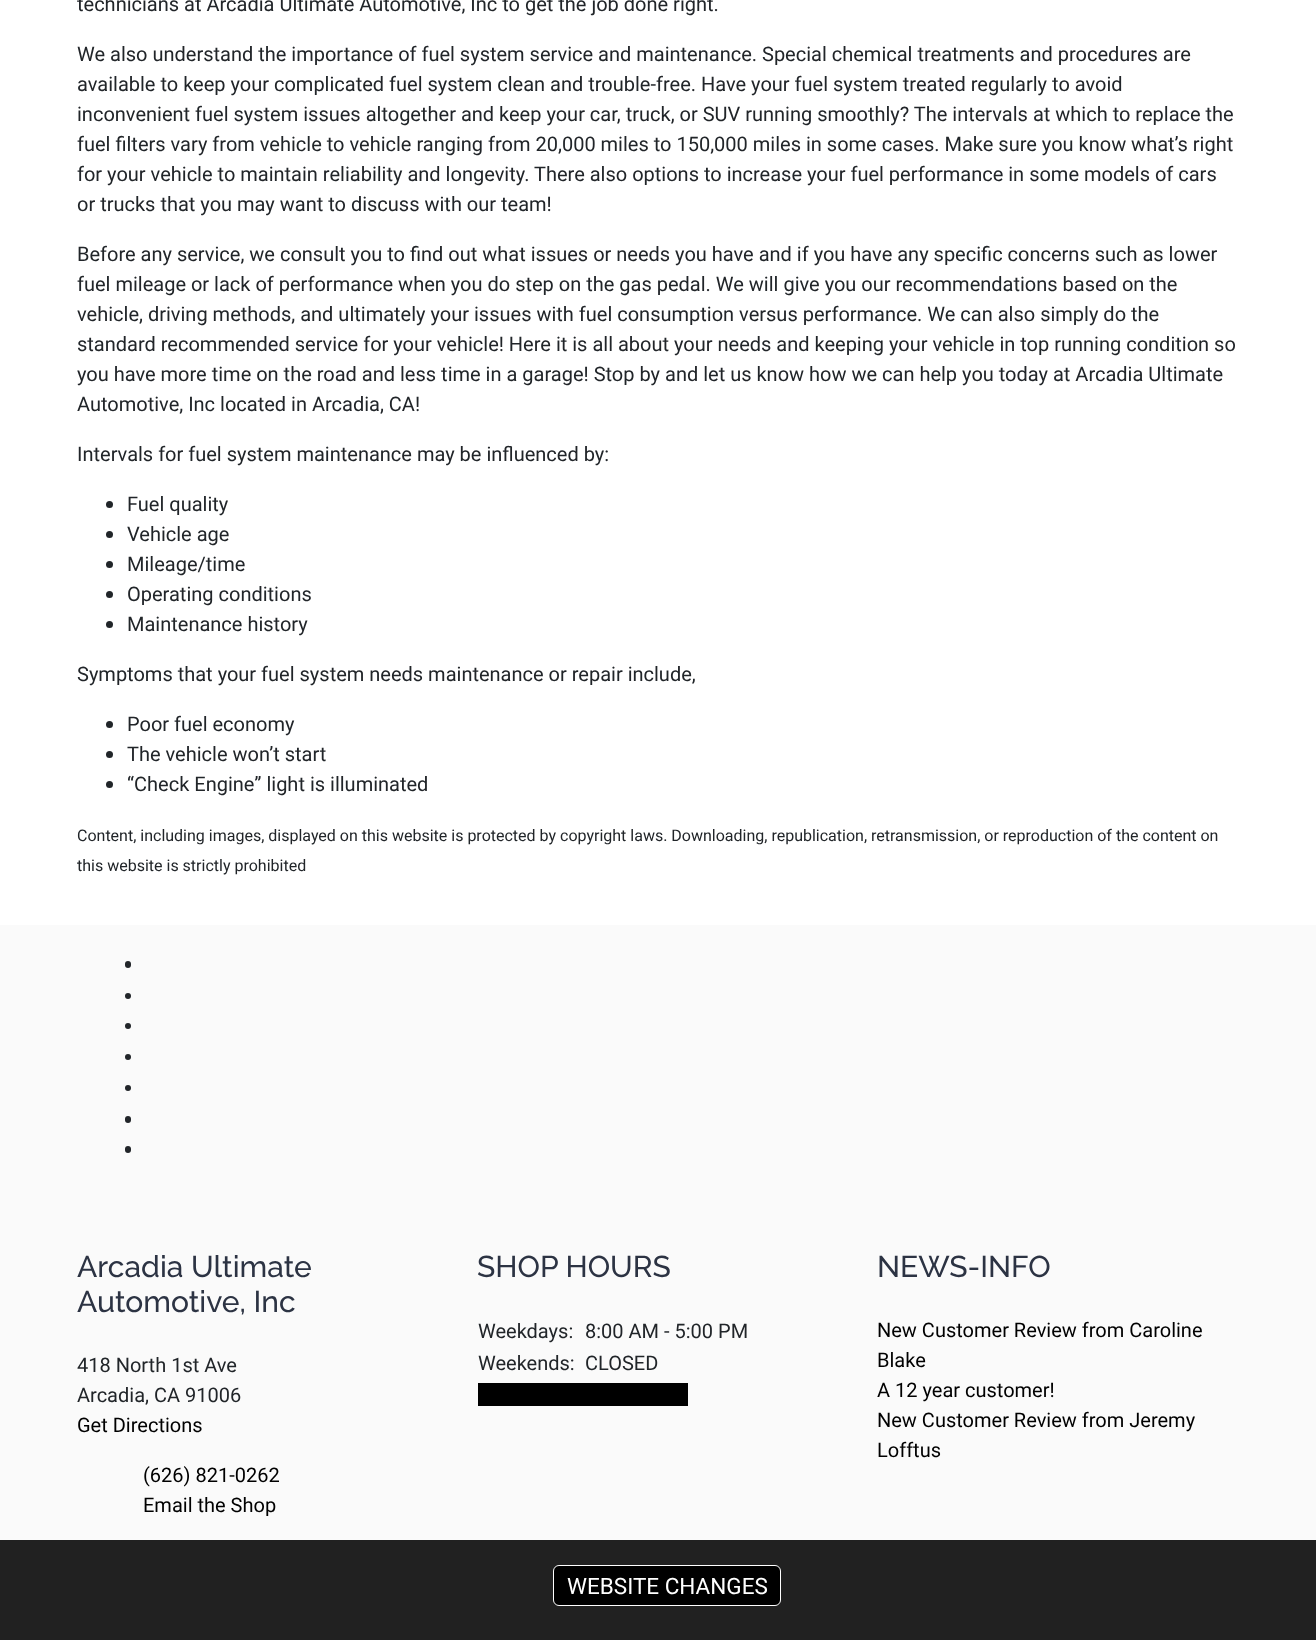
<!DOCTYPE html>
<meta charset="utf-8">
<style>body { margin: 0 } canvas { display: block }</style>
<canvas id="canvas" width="1316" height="1640"></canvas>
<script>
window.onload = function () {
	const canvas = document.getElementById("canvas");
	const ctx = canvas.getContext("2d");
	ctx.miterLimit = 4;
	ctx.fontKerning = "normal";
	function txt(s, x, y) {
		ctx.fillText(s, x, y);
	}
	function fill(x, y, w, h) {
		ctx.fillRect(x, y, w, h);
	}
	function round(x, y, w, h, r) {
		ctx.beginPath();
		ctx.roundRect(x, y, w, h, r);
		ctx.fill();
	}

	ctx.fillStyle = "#212121";
	fill(0, 0, 1316, 1640);
	ctx.fillStyle = "#FFFFFF";
	fill(0, 0, 1316, 925);
	ctx.fillStyle = "#212529";
	ctx.beginPath();
	ctx.arc(109.5, 504.5, 3.5, 0, Math.PI * 2);
	ctx.fill();
	ctx.beginPath();
	ctx.arc(109.5, 534.5, 3.5, 0, Math.PI * 2);
	ctx.fill();
	ctx.beginPath();
	ctx.arc(109.5, 564.5, 3.5, 0, Math.PI * 2);
	ctx.fill();
	ctx.beginPath();
	ctx.arc(109.5, 594.5, 3.5, 0, Math.PI * 2);
	ctx.fill();
	ctx.beginPath();
	ctx.arc(109.5, 624.5, 3.5, 0, Math.PI * 2);
	ctx.fill();
	ctx.beginPath();
	ctx.arc(109.5, 724.5, 3.5, 0, Math.PI * 2);
	ctx.fill();
	ctx.beginPath();
	ctx.arc(109.5, 754.5, 3.5, 0, Math.PI * 2);
	ctx.fill();
	ctx.beginPath();
	ctx.arc(109.5, 784.5, 3.5, 0, Math.PI * 2);
	ctx.fill();
	ctx.fillStyle = "#FAFAFA";
	fill(0, 925, 1316, 615);
	ctx.fillStyle = "#212529";
	round(125, 961, 6, 7, 3);
	ctx.beginPath();
	ctx.arc(128, 996, 3, 0, Math.PI * 2);
	ctx.fill();
	ctx.beginPath();
	ctx.arc(128, 1026, 3, 0, Math.PI * 2);
	ctx.fill();
	ctx.beginPath();
	ctx.arc(128, 1057, 3, 0, Math.PI * 2);
	ctx.fill();
	ctx.beginPath();
	ctx.arc(128, 1088, 3, 0, Math.PI * 2);
	ctx.fill();
	round(125, 1116, 6, 7, 3);
	round(125, 1146, 6, 7, 3);
	ctx.fillStyle = "#000000";
	fill(478, 1383, 210, 23);
	ctx.beginPath();
	ctx.roundRect(553.5, 1565.5, 227, 40, 5.5);
	ctx.fill();
	ctx.strokeStyle = "#FFFFFF";
	ctx.stroke();
	ctx.font = "20px Roboto";
	ctx.fillStyle = "#212529";
	txt("technicians at Arcadia Ultimate Automotive, Inc to get the job done right.", 77, 11);
	txt("We also understand the importance of fuel system service and maintenance. Special chemical treatments and procedures are", 77, 61);
	txt("available to keep your complicated fuel system clean and trouble-free. Have your fuel system treated regularly to avoid", 77, 91);
	txt("inconvenient fuel system issues altogether and keep your car, truck, or SUV running smoothly? The intervals at which to replace the", 77, 121);
	txt("fuel filters vary from vehicle to vehicle ranging from 20,000 miles to 150,000 miles in some cases. Make sure you know what’s right", 77, 151);
	txt("for your vehicle to maintain reliability and longevity. There also options to increase your fuel performance in some models of cars", 77, 181);
	txt("or trucks that you may want to discuss with our team!", 77, 211);
	txt("Before any service, we consult you to find out what issues or needs you have and if you have any specific concerns such as lower", 77, 261);
	txt("fuel mileage or lack of performance when you do step on the gas pedal. We will give you our recommendations based on the", 77, 291);
	txt("vehicle, driving methods, and ultimately your issues with fuel consumption versus performance. We can also simply do the", 77, 321);
	txt("standard recommended service for your vehicle! Here it is all about your needs and keeping your vehicle in top running condition so", 77, 351);
	txt("you have more time on the road and less time in a garage! Stop by and let us know how we can help you today at Arcadia Ultimate", 77, 381);
	txt("Automotive, Inc located in Arcadia, CA!", 77, 411);
	txt("Intervals for fuel system maintenance may be influenced by:", 77, 461);
	txt("Fuel quality", 127, 511);
	txt("Vehicle age", 127, 541);
	txt("Mileage/time", 127, 571);
	txt("Operating conditions", 127, 601);
	txt("Maintenance history", 127, 631);
	txt("Symptoms that your fuel system needs maintenance or repair include,", 77, 681);
	txt("Poor fuel economy", 127, 731);
	txt("The vehicle won’t start", 127, 761);
	txt("“Check Engine” light is illuminated", 127, 791);
	ctx.font = "16px Roboto";
	txt("Content, including images, displayed on this website is protected by copyright laws. Downloading, republication, retransmission, or reproduction of the content on", 77, 841);
	txt("this website is strictly prohibited", 77, 871);
	ctx.font = "500 30px Raleway";
	ctx.fillStyle = "#2C3343";
	txt("Arcadia Ultimate", 77, 1277);
	txt("Automotive, Inc", 77, 1312);
	ctx.font = "20px Roboto";
	ctx.fillStyle = "#212529";
	txt("418 North 1st Ave", 77, 1372);
	txt("Arcadia, CA 91006", 77, 1402);
	ctx.fillStyle = "#000000";
	txt("Get Directions", 77, 1432);
	txt("(626) 821-0262", 143, 1482);
	txt("Email the Shop", 143, 1512);
	ctx.font = "500 30px Raleway";
	ctx.fillStyle = "#2C3343";
	txt("SHOP HOURS", 477, 1277);
	ctx.font = "20px Roboto";
	ctx.fillStyle = "#212529";
	txt("Weekdays:", 478, 1338);
	txt("8:00 AM - 5:00 PM", 585, 1338);
	txt("Weekends:", 478, 1370);
	txt("CLOSED", 585, 1370);
	ctx.font = "500 30px Raleway";
	ctx.fillStyle = "#2C3343";
	txt("NEWS-INFO", 877, 1277);
	ctx.font = "20px Roboto";
	ctx.fillStyle = "#000000";
	txt("New Customer Review from Caroline", 877, 1337);
	txt("Blake", 877, 1367);
	txt("A 12 year customer!", 877, 1397);
	txt("New Customer Review from Jeremy", 877, 1427);
	txt("Lofftus", 877, 1457);
	ctx.font = "22.5px Roboto";
	ctx.fillStyle = "#FFFFFF";
	txt("WEBSITE CHANGES", 567, 1594);
};
</script>
